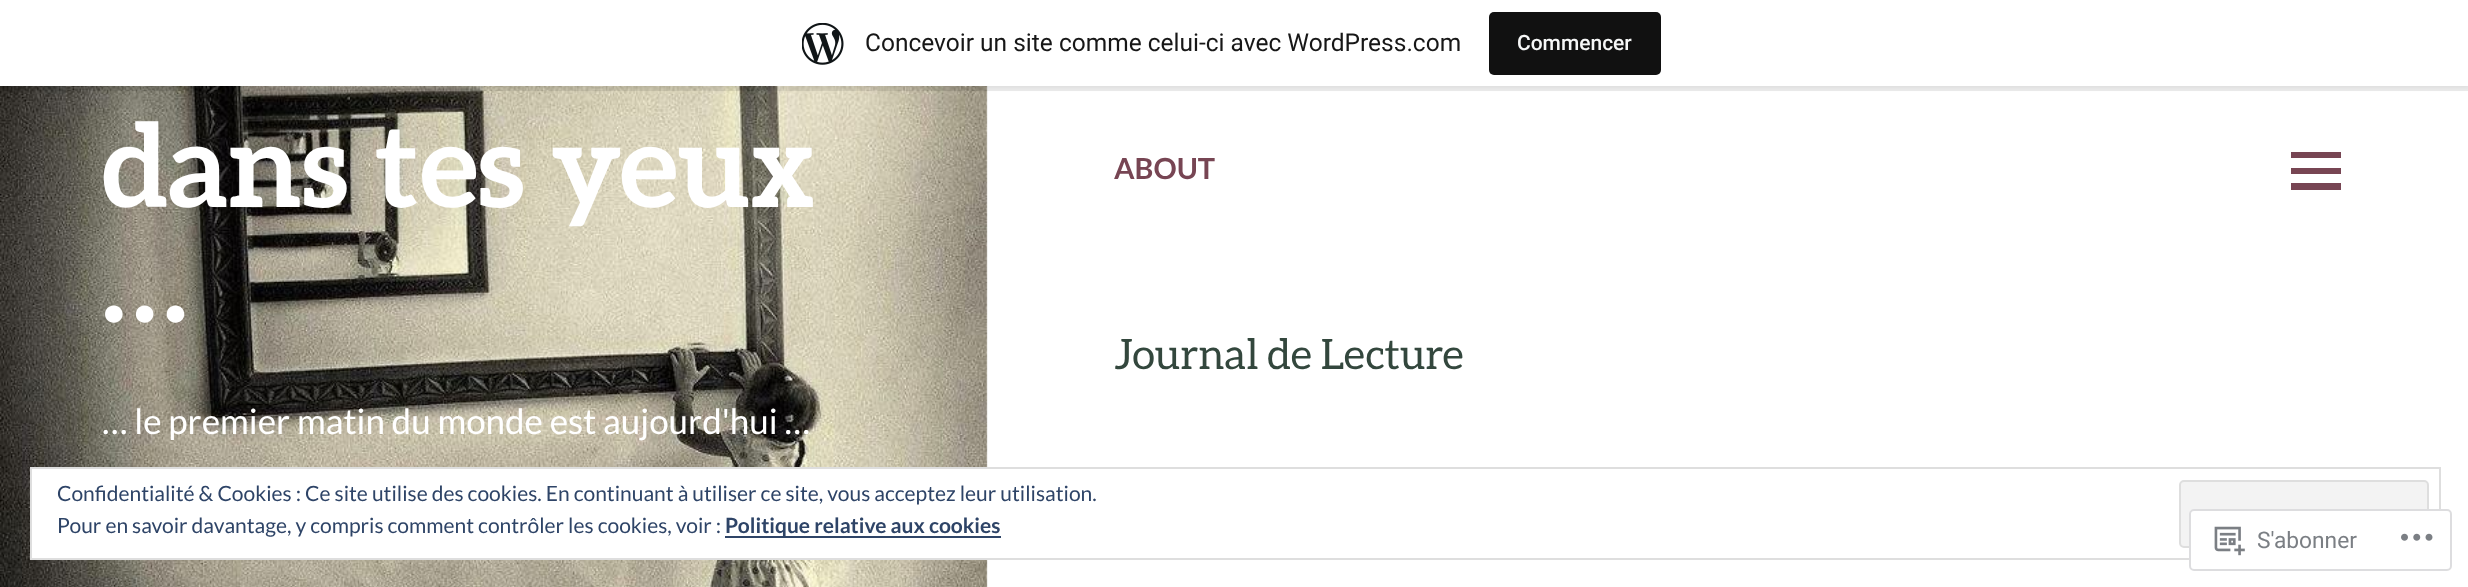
<!DOCTYPE html>
<meta charset="utf-8">
<style>body { margin: 0 } canvas { display: block }</style>
<canvas id="canvas" width="2468" height="587"></canvas>
<img id="img1" src="img_02.png" hidden>
<img id="img2" src="img_01.png" hidden>
<img id="img3" src="img_03.png" hidden>
<img id="img4" src="img_04.png" hidden>
<script>
window.onload = function () {
	const canvas = document.getElementById("canvas");
	const ctx = canvas.getContext("2d");
	ctx.miterLimit = 4;
	ctx.fontKerning = "normal";
	function txt(s, x, y) {
		ctx.fillText(s, x, y);
	}
	function fill(x, y, w, h) {
		ctx.fillRect(x, y, w, h);
	}
	function round(x, y, w, h, r) {
		ctx.beginPath();
		ctx.roundRect(x, y, w, h, r);
		ctx.fill();
	}
	function img(id, x, y, w, h) {
		ctx.drawImage(document.getElementById(id), x, y, w, h);
	}

	ctx.fillStyle = "#FFFFFF";
	fill(0, 0, 2468, 587);
	img("img1", 0, 86, 988, 501);
	ctx.fillStyle = "rgba(0, 0, 0, 0.05)";
	ctx.filter = "blur(2px)";
	ctx.beginPath();
	ctx.rect(0, 2, 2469, 86);
	ctx.fill();
	ctx.filter = "none";
	ctx.fillStyle = "rgba(0, 0, 0, 0.08)";
	ctx.beginPath();
	ctx.moveTo(2, 86);
	ctx.lineTo(2, 91);
	ctx.lineTo(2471, 91);
	ctx.lineTo(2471, 5);
	ctx.lineTo(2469, 5);
	ctx.lineTo(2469, 86);
	ctx.closePath();
	ctx.fill();
	ctx.fillStyle = "#FFFFFF";
	fill(0, 0, 2468, 86);
	img("img2", 802, 23, 42, 42);
	ctx.fillStyle = "#111111";
	round(1489, 12, 172, 63, 5);
	ctx.fillStyle = "#774553";
	ctx.beginPath();
	ctx.moveTo(2291, 190);
	ctx.lineTo(2291, 183);
	ctx.lineTo(2341, 183);
	ctx.lineTo(2341, 190);
	ctx.closePath();
	ctx.moveTo(2291, 152);
	ctx.lineTo(2341, 152);
	ctx.lineTo(2341, 158);
	ctx.lineTo(2291, 158);
	ctx.closePath();
	ctx.moveTo(2291, 174);
	ctx.lineTo(2291, 168);
	ctx.lineTo(2341, 168);
	ctx.lineTo(2341, 174);
	ctx.closePath();
	ctx.fill();
	ctx.fillStyle = "#FFFFFF";
	fill(32, 469, 956, 89);
	ctx.strokeStyle = "#DEDEDE";
	ctx.lineWidth = 2;
	ctx.strokeRect(31, 468, 2409, 91);
	ctx.fillStyle = "#F3F3F3";
	ctx.beginPath();
	ctx.roundRect(2180, 481, 248, 66, 4);
	ctx.fill();
	ctx.stroke();
	ctx.fillStyle = "#2E4467";
	fill(725, 536, 276, 2);
	ctx.fillStyle = "rgba(255, 255, 255, 0.98)";
	round(2189, 509, 263, 62, 5);
	ctx.beginPath();
	ctx.roundRect(2190, 510, 261, 60, 4);
	ctx.strokeStyle = "rgba(220, 220, 222, 0.98)";
	ctx.stroke();
	img("img3", 2214, 526, 31, 30);
	img("img4", 2401, 533, 32, 8);
	ctx.font = "24.5px Roboto";
	ctx.fillStyle = "#171717";
	txt("Concevoir un site comme celui-ci avec WordPress.com", 865, 51);
	ctx.font = "500 21px Roboto";
	ctx.fillStyle = "#F6F7F7";
	txt("Commencer", 1517, 50);
	ctx.font = "bold 115.5px Aleo";
	ctx.fillStyle = "#FFFFFF";
	txt("dans tes yeux", 102, 207);
	txt("…", 102, 322);
	ctx.font = "35px Lato";
	txt("… le premier matin du monde est aujourd'hui …", 102, 434);
	ctx.font = "bold 29px Lato";
	ctx.fillStyle = "#774553";
	txt("ABOUT", 1114, 179);
	ctx.font = "42px Aleo";
	ctx.fillStyle = "#33473D";
	txt("Journal de Lecture", 1114, 369);
	ctx.font = "21px Lato";
	ctx.fillStyle = "#2E4467";
	txt("Confidentialité & Cookies : Ce site utilise des cookies. En continuant à utiliser ce site, vous acceptez leur utilisation.", 57, 501);
	txt("Pour en savoir davantage, y compris comment contrôler les cookies, voir :", 57, 533);
	ctx.font = "bold 21px Lato";
	txt("Politique relative aux cookies", 725, 533);
	ctx.font = "22.75px Roboto";
	ctx.fillStyle = "#7B7F84";
	txt("S'abonner", 2257, 548);
};
</script>
